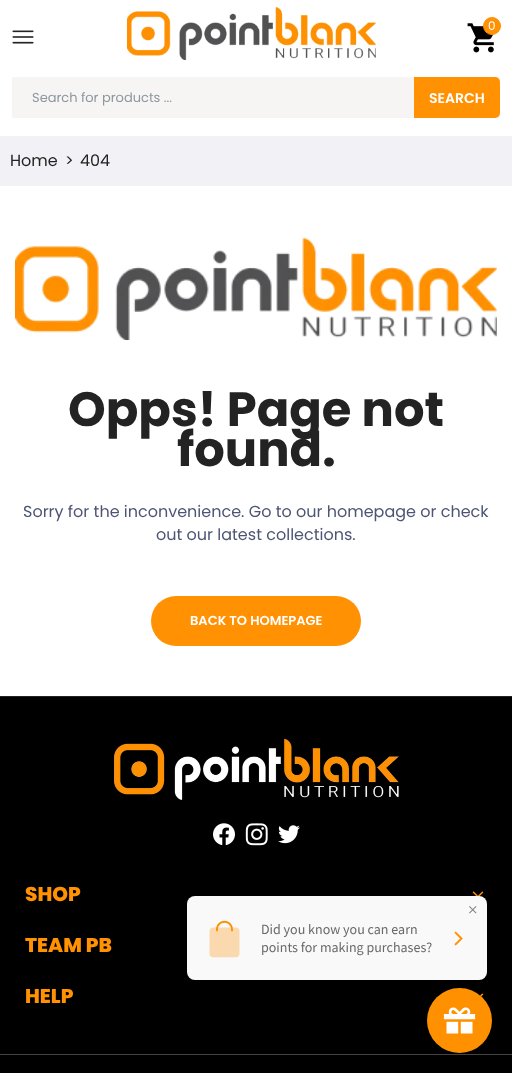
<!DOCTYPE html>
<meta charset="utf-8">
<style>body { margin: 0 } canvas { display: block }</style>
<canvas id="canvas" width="512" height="1073"></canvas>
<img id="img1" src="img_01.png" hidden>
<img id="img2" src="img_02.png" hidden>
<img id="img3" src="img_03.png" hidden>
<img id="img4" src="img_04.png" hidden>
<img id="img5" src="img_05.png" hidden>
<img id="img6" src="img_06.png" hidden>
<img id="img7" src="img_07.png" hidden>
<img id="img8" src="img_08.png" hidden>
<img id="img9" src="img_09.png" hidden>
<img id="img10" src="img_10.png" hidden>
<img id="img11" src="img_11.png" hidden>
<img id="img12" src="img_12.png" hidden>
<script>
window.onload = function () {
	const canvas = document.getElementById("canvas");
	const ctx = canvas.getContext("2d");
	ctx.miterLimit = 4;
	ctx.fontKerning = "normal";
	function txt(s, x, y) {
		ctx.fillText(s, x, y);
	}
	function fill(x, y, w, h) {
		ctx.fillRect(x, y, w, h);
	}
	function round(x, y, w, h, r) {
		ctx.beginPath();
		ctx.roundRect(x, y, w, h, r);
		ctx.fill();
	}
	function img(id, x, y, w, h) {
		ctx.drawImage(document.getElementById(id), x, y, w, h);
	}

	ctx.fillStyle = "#FFFFFF";
	fill(0, 0, 512, 1073);
	img("img1", 127, 6, 249, 54);
	img("img2", 467, 23, 27, 30);
	ctx.fillStyle = "#FF9103";
	ctx.beginPath();
	ctx.arc(492, 26, 8.5, 0, Math.PI * 2);
	ctx.fill();
	ctx.strokeStyle = "#FF9103";
	ctx.stroke();
	img("img3", 12, 30, 22, 14);
	ctx.fillStyle = "#F6F5F4";
	ctx.beginPath();
	ctx.roundRect(11, 76, 490, 43, 3);
	ctx.fill();
	ctx.strokeStyle = "#FFFFFF";
	ctx.lineWidth = 2;
	ctx.stroke();
	ctx.fillStyle = "#FF9103";
	ctx.beginPath();
	ctx.roundRect(414, 77, 86, 41, [0, 5, 5, 0]);
	ctx.fill();
	ctx.fillStyle = "#F2F2F6";
	fill(0, 136, 512, 50);
	img("img4", 15, 237, 482, 103);
	ctx.fillStyle = "#FF9103";
	round(151, 596, 210, 50, 25);
	ctx.fillStyle = "#000000";
	fill(0, 697, 512, 357);
	ctx.fillStyle = "#222222";
	fill(0, 696, 512, 1);
	img("img5", 114, 739, 285, 61);
	img("img6", 213, 823, 22, 23);
	img("img7", 245, 823, 23, 23);
	img("img8", 278, 825, 22, 19);
	img("img9", 472, 891, 12, 6);
	img("img10", 479, 993, 5, 4);
	ctx.fillStyle = "#000000";
	fill(0, 1055, 512, 18);
	ctx.fillStyle = "#444444";
	fill(0, 1054, 512, 1);
	img("img11", 187, 895, 300, 85);
	img("img12", 427, 988, 65, 65);
	ctx.font = "12px Poppins";
	ctx.fillStyle = "#FFFFFF";
	txt("0", 488, 30);
	ctx.font = "13px Poppins";
	ctx.fillStyle = "#8D979E";
	txt("Search for products ...", 32, 102);
	ctx.font = "600 14px Poppins";
	ctx.fillStyle = "#FFFFFF";
	txt("SEARCH", 429, 103);
	ctx.font = "16px Poppins";
	ctx.fillStyle = "#232323";
	txt("Home", 10, 166);
	txt(">", 65, 166);
	txt("404", 80, 166);
	ctx.font = "bold 48px Poppins";
	txt("Opps! Page not", 68, 426);
	txt("found.", 177, 466);
	ctx.font = "16px Poppins";
	ctx.fillStyle = "#4D5574";
	txt("Sorry for the inconvenience. Go to our homepage or check", 23, 517);
	txt("out our latest collections.", 156, 540);
	ctx.font = "600 13px Poppins";
	ctx.fillStyle = "#FFFFFF";
	txt("BACK TO HOMEPAGE", 190, 625);
	ctx.font = "800 20px Poppins";
	ctx.fillStyle = "#FF9103";
	txt("SHOP", 25, 901);
	txt("TEAM PB", 25, 952);
	txt("HELP", 25, 1003);
};
</script>
